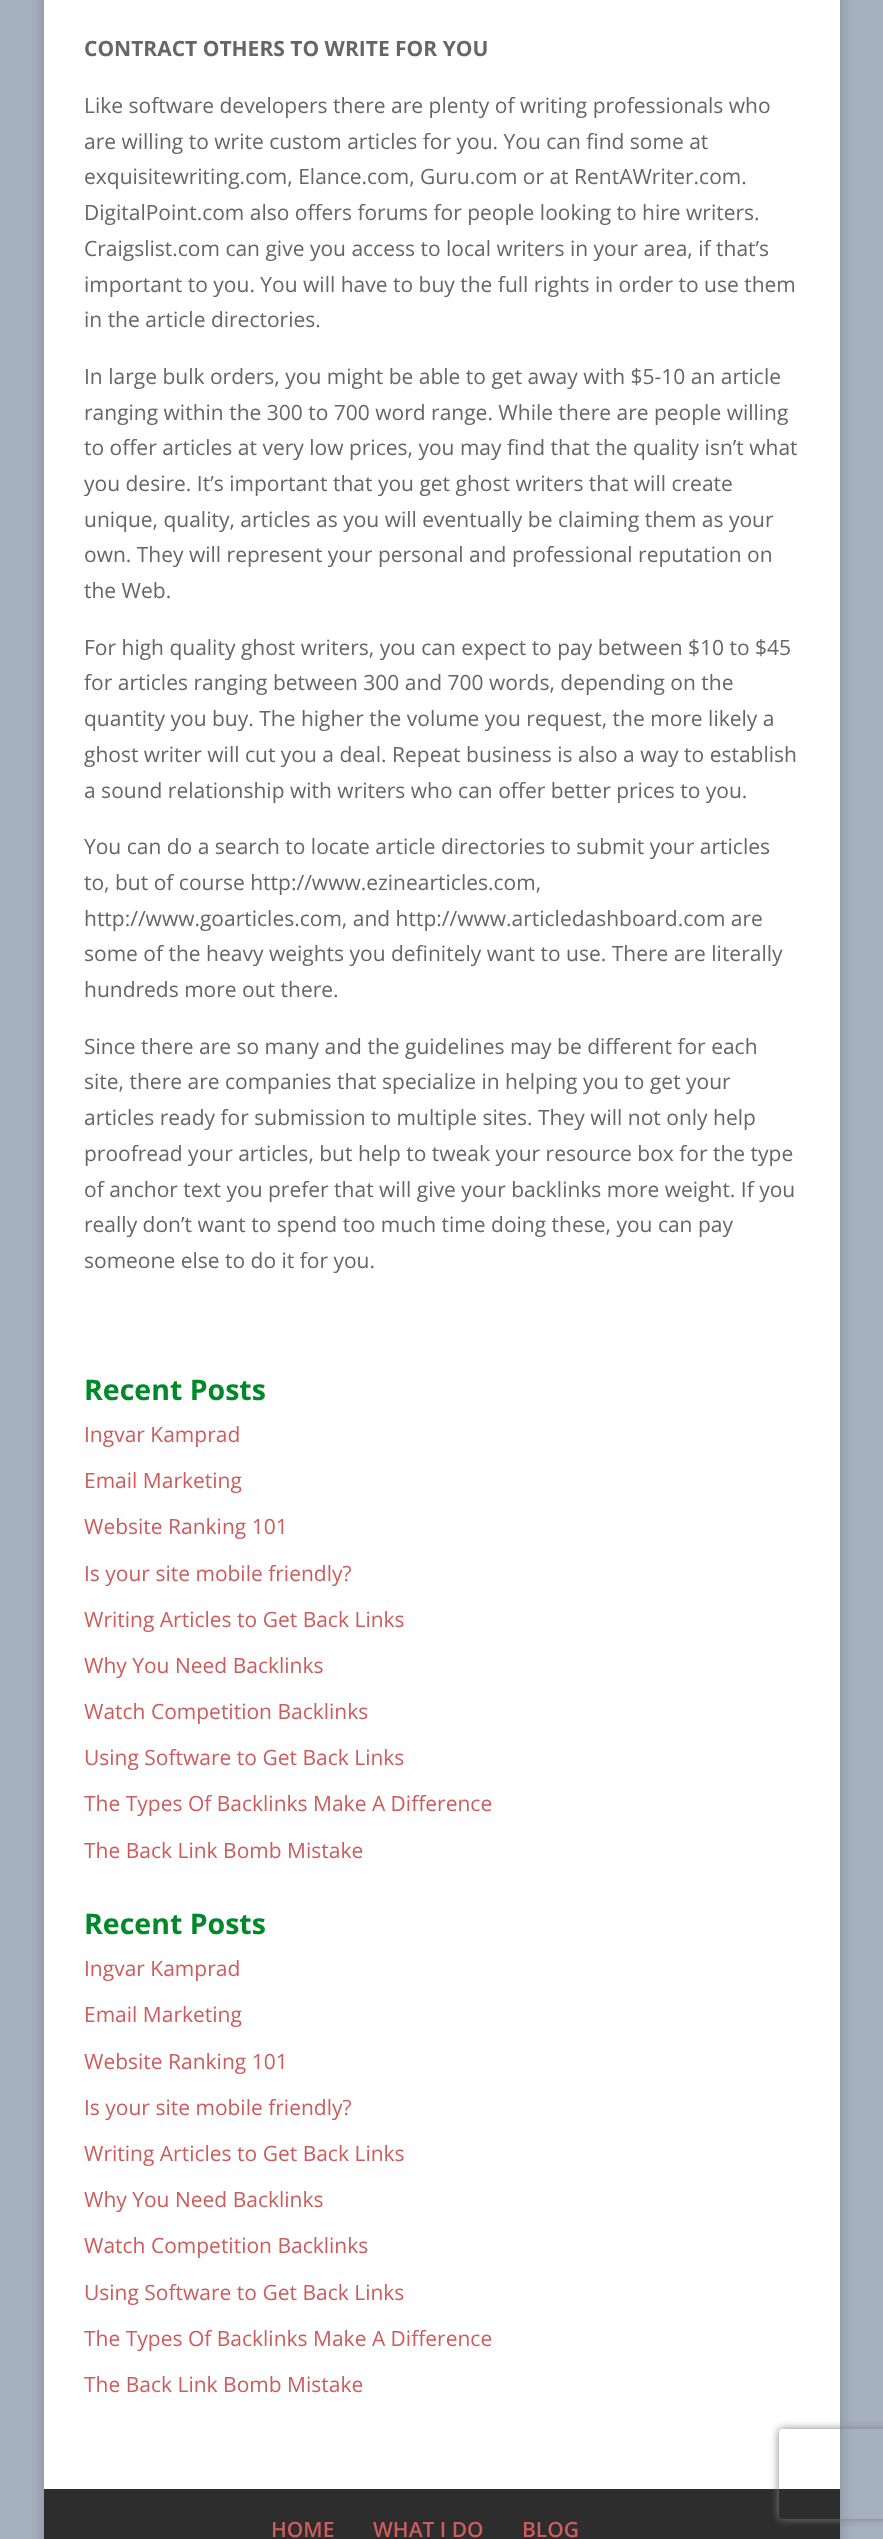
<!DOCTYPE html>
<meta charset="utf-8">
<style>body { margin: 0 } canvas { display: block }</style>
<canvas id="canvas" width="883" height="2539"></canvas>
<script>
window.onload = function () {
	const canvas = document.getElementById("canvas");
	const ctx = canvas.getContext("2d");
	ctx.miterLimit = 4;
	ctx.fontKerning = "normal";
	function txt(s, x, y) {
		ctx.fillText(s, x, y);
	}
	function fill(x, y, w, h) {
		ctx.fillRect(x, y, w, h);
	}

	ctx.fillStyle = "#A6B1BF";
	fill(0, 0, 883, 2539);
	ctx.fillStyle = "rgba(0, 0, 0, 0.2)";
	ctx.filter = "blur(7.5px)";
	ctx.beginPath();
	ctx.rect(44, -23, 796, 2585);
	ctx.fill();
	ctx.filter = "none";
	ctx.fillStyle = "#FFFFFF";
	fill(44, 0, 796, 2489);
	ctx.fillStyle = "#2D2D2D";
	fill(44, 2489, 796, 50);
	ctx.save();
	ctx.beginPath();
	ctx.moveTo(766, 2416);
	ctx.lineTo(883, 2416);
	ctx.lineTo(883, 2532);
	ctx.lineTo(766, 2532);
	ctx.closePath();
	ctx.moveTo(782, 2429);
	ctx.lineTo(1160, 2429);
	ctx.bezierCurveTo(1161.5, 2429, 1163, 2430.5, 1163, 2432);
	ctx.lineTo(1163, 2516);
	ctx.bezierCurveTo(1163, 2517.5, 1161.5, 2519, 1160, 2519);
	ctx.lineTo(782, 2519);
	ctx.bezierCurveTo(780.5, 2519, 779, 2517.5, 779, 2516);
	ctx.lineTo(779, 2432);
	ctx.bezierCurveTo(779, 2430.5, 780.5, 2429, 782, 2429);
	ctx.closePath();
	ctx.clip("evenodd");
	ctx.fillStyle = "#808080";
	ctx.filter = "blur(4px)";
	ctx.beginPath();
	ctx.roundRect(779, 2429, 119, 90, 3);
	ctx.fill();
	ctx.filter = "none";
	ctx.restore();
	ctx.font = "bold 21px Open Sans";
	ctx.fillStyle = "#666666";
	txt("CONTRACT OTHERS TO WRITE FOR YOU", 84, 56);
	ctx.font = "21px Open Sans";
	txt("Like software developers there are plenty of writing professionals who", 84, 113);
	txt("are willing to write custom articles for you. You can find some at", 84, 149);
	txt("exquisitewriting.com, Elance.com, Guru.com or at RentAWriter.com.", 84, 184);
	txt("DigitalPoint.com also offers forums for people looking to hire writers.", 84, 220);
	txt("Craigslist.com can give you access to local writers in your area, if that’s", 84, 256);
	txt("important to you. You will have to buy the full rights in order to use them", 84, 292);
	txt("in the article directories.", 84, 327);
	txt("In large bulk orders, you might be able to get away with $5-10 an article", 84, 384);
	txt("ranging within the 300 to 700 word range. While there are people willing", 84, 420);
	txt("to offer articles at very low prices, you may find that the quality isn’t what", 84, 455);
	txt("you desire. It’s important that you get ghost writers that will create", 84, 491);
	txt("unique, quality, articles as you will eventually be claiming them as your", 84, 527);
	txt("own. They will represent your personal and professional reputation on", 84, 562);
	txt("the Web.", 84, 598);
	txt("For high quality ghost writers, you can expect to pay between $10 to $45", 84, 655);
	txt("for articles ranging between 300 and 700 words, depending on the", 84, 690);
	txt("quantity you buy. The higher the volume you request, the more likely a", 84, 726);
	txt("ghost writer will cut you a deal. Repeat business is also a way to establish", 84, 762);
	txt("a sound relationship with writers who can offer better prices to you.", 84, 798);
	txt("You can do a search to locate article directories to submit your articles", 84, 854);
	txt("to, but of course http://www.ezinearticles.com,", 84, 890);
	txt("http://www.goarticles.com, and http://www.articledashboard.com are", 84, 926);
	txt("some of the heavy weights you definitely want to use. There are literally", 84, 961);
	txt("hundreds more out there.", 84, 997);
	txt("Since there are so many and the guidelines may be different for each", 84, 1054);
	txt("site, there are companies that specialize in helping you to get your", 84, 1089);
	txt("articles ready for submission to multiple sites. They will not only help", 84, 1125);
	txt("proofread your articles, but help to tweak your resource box for the type", 84, 1161);
	txt("of anchor text you prefer that will give your backlinks more weight. If you", 84, 1197);
	txt("really don’t want to spend too much time doing these, you can pay", 84, 1232);
	txt("someone else to do it for you.", 84, 1268);
	ctx.font = "bold 28.5px Open Sans";
	ctx.fillStyle = "#008929";
	txt("Recent Posts", 84, 1400);
	ctx.font = "21px Open Sans";
	ctx.fillStyle = "#CD5C5C";
	txt("Ingvar Kamprad", 84, 1442);
	txt("Email Marketing", 84, 1488);
	txt("Website Ranking 101", 84, 1534);
	txt("Is your site mobile friendly?", 84, 1581);
	txt("Writing Articles to Get Back Links", 84, 1627);
	txt("Why You Need Backlinks", 84, 1673);
	txt("Watch Competition Backlinks", 84, 1719);
	txt("Using Software to Get Back Links", 84, 1765);
	txt("The Types Of Backlinks Make A Difference", 84, 1811);
	txt("The Back Link Bomb Mistake", 84, 1858);
	ctx.font = "bold 28.5px Open Sans";
	ctx.fillStyle = "#008929";
	txt("Recent Posts", 84, 1934);
	ctx.font = "21px Open Sans";
	ctx.fillStyle = "#CD5C5C";
	txt("Ingvar Kamprad", 84, 1976);
	txt("Email Marketing", 84, 2022);
	txt("Website Ranking 101", 84, 2069);
	txt("Is your site mobile friendly?", 84, 2115);
	txt("Writing Articles to Get Back Links", 84, 2161);
	txt("Why You Need Backlinks", 84, 2207);
	txt("Watch Competition Backlinks", 84, 2253);
	txt("Using Software to Get Back Links", 84, 2300);
	txt("The Types Of Backlinks Make A Difference", 84, 2346);
	txt("The Back Link Bomb Mistake", 84, 2392);
	ctx.font = "600 21px Open Sans";
	txt("HOME", 271, 2537);
	txt("WHAT I DO", 373, 2537);
	txt("BLOG", 522, 2537);
};
</script>
